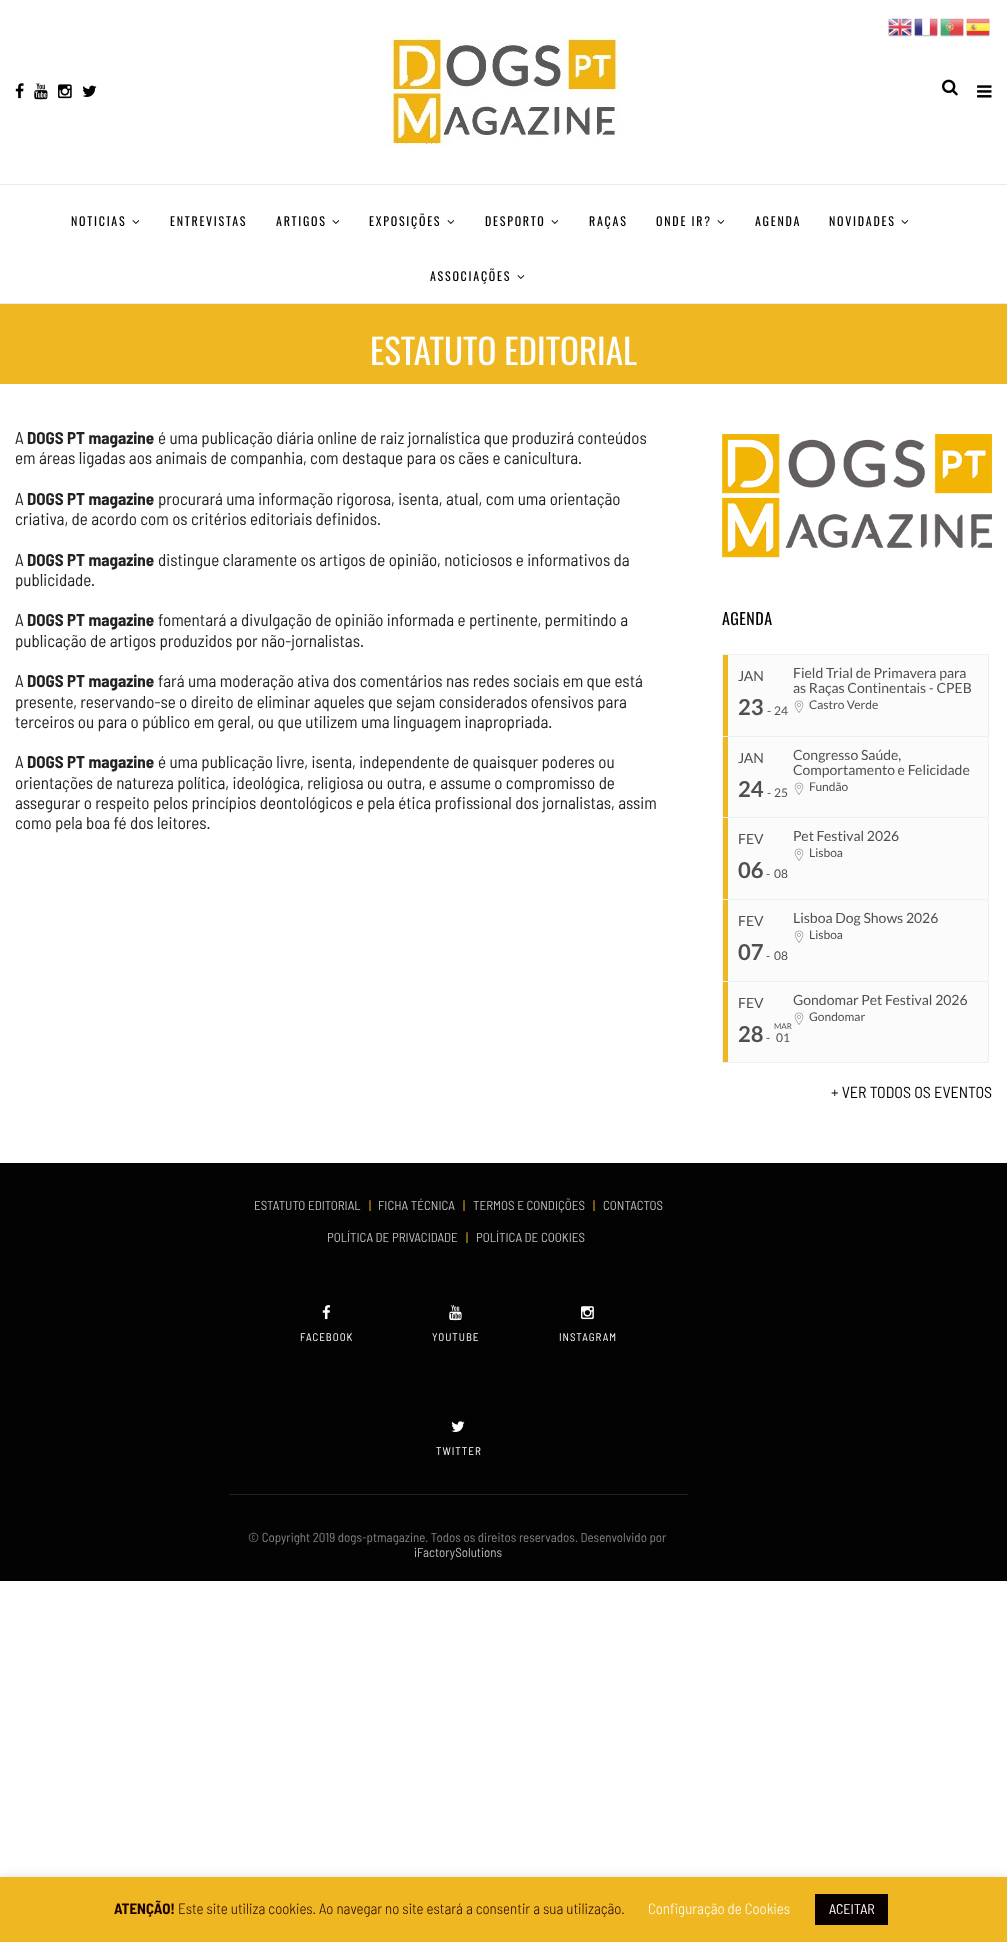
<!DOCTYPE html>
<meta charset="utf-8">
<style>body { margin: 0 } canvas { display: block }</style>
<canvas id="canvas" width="1007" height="1942"></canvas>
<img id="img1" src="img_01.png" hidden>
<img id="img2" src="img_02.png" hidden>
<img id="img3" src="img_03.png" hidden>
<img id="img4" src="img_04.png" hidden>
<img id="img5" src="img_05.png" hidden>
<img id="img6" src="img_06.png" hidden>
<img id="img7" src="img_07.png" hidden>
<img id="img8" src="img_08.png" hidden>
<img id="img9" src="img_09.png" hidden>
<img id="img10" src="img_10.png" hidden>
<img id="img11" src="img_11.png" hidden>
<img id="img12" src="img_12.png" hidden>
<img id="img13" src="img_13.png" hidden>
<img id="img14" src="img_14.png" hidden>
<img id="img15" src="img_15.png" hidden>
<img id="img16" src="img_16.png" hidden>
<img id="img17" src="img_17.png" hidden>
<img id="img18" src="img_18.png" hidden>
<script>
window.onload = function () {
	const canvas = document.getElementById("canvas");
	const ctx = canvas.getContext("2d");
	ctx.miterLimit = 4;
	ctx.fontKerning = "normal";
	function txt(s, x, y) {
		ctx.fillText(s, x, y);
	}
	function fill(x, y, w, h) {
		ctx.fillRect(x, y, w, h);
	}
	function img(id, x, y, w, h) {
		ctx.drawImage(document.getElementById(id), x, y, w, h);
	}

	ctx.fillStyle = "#FFFFFF";
	fill(0, 0, 1007, 1942);
	img("img1", 888, 18, 24, 19);
	img("img2", 914, 18, 24, 19);
	img("img3", 940, 18, 24, 19);
	img("img4", 966, 18, 24, 19);
	img("img5", 15, 83, 9, 16);
	img("img6", 34, 83, 14, 17);
	img("img7", 58, 84, 14, 15);
	img("img8", 82, 85, 15, 12);
	img("img9", 387, 35, 234, 112);
	img("img10", 942, 79, 16, 17);
	img("img11", 977, 85, 15, 13);
	ctx.fillStyle = "#EAEAEA";
	fill(0, 184, 1007, 1);
	fill(0, 303, 1007, 1);
	img("img12", 132, 220, 8, 4);
	img("img12", 332, 220, 8, 4);
	img("img12", 447, 220, 8, 4);
	img("img12", 551, 220, 8, 4);
	img("img12", 717, 220, 8, 4);
	img("img12", 901, 220, 8, 4);
	img("img12", 517, 275, 8, 4);
	ctx.fillStyle = "#EFB721";
	fill(0, 304, 1007, 80);
	img("img13", 722, 434, 270, 124);
	ctx.fillStyle = "#FBFBFB";
	ctx.beginPath();
	ctx.roundRect(722.5, 654.5, 266, 82, 1.5);
	ctx.fill();
	ctx.strokeStyle = "#ECF0F1";
	ctx.stroke();
	ctx.fillStyle = "#EFB721";
	fill(723, 655, 5, 81);
	img("img14", 794, 700, 10, 13);
	ctx.fillStyle = "#FBFBFB";
	ctx.beginPath();
	ctx.roundRect(722.5, 736.5, 266, 81, 1.5);
	ctx.fill();
	ctx.stroke();
	ctx.fillStyle = "#EFB721";
	fill(723, 737, 5, 80);
	img("img14", 794, 782, 10, 13);
	ctx.fillStyle = "#FBFBFB";
	ctx.beginPath();
	ctx.roundRect(722.5, 817.5, 266, 82, 1.5);
	ctx.fill();
	ctx.stroke();
	ctx.fillStyle = "#EFB721";
	fill(723, 818, 5, 81);
	img("img14", 794, 848, 10, 13);
	ctx.fillStyle = "#FBFBFB";
	ctx.beginPath();
	ctx.roundRect(722.5, 899.5, 266, 82, 1.5);
	ctx.fill();
	ctx.stroke();
	ctx.fillStyle = "#EFB721";
	fill(723, 900, 5, 81);
	img("img14", 794, 930, 10, 13);
	ctx.fillStyle = "#FBFBFB";
	ctx.beginPath();
	ctx.roundRect(722.5, 981.5, 266, 81, 1.5);
	ctx.fill();
	ctx.stroke();
	ctx.fillStyle = "#EFB721";
	fill(723, 982, 5, 80);
	img("img14", 794, 1012, 10, 13);
	ctx.fillStyle = "#030303";
	fill(0, 1163, 1007, 418);
	ctx.fillStyle = "#202020";
	fill(229, 1494, 459, 1);
	img("img15", 322, 1305, 9, 15);
	img("img16", 449, 1305, 13, 16);
	img("img17", 581, 1306, 13, 14);
	img("img18", 451, 1421, 14, 11);
	ctx.fillStyle = "rgba(172, 171, 171, 0.3)";
	ctx.filter = "blur(5px)";
	ctx.beginPath();
	ctx.rect(0, 1876, 1007, 65);
	ctx.fill();
	ctx.filter = "none";
	ctx.fillStyle = "#EFB721";
	fill(0, 1877, 1007, 65);
	ctx.fillStyle = "#0A0000";
	fill(815, 1894, 73, 31);
	ctx.letterSpacing = "1.75px";
	ctx.font = "12px Oswald";
	ctx.fillStyle = "#000000";
	txt("NOTICIAS", 71, 226);
	txt("ENTREVISTAS", 170, 226);
	txt("ARTIGOS", 276, 226);
	txt("EXPOSIÇÕES", 369, 226);
	txt("DESPORTO", 485, 226);
	txt("RAÇAS", 589, 226);
	txt("ONDE IR?", 656, 226);
	txt("AGENDA", 755, 226);
	txt("NOVIDADES", 829, 226);
	txt("ASSOCIAÇÕES", 430, 281);
	ctx.letterSpacing = "0px";
	ctx.font = "35px Oswald";
	ctx.fillStyle = "#FFFFFF";
	txt("ESTATUTO EDITORIAL", 370, 365);
	ctx.font = "17px Barlow Semi Condensed";
	ctx.fillStyle = "#222222";
	txt("A", 15, 444);
	ctx.font = "bold 17px Barlow Semi Condensed";
	txt("DOGS PT magazine", 27, 444);
	ctx.font = "17px Barlow Semi Condensed";
	txt("é uma publicação diária online de raiz jornalística que produzirá conteúdos", 158, 444);
	txt("em áreas ligadas aos animais de companhia, com destaque para os cães e canicultura.", 15, 464);
	txt("A", 15, 505);
	ctx.font = "bold 17px Barlow Semi Condensed";
	txt("DOGS PT magazine", 27, 505);
	ctx.font = "17px Barlow Semi Condensed";
	txt("procurará uma informação rigorosa, isenta, atual, com uma orientação", 158, 505);
	txt("criativa, de acordo com os critérios editoriais definidos.", 15, 525);
	txt("A", 15, 566);
	ctx.font = "bold 17px Barlow Semi Condensed";
	txt("DOGS PT magazine", 27, 566);
	ctx.font = "17px Barlow Semi Condensed";
	txt("distingue claramente os artigos de opinião, noticiosos e informativos da", 158, 566);
	txt("publicidade.", 15, 586);
	txt("A", 15, 626);
	ctx.font = "bold 17px Barlow Semi Condensed";
	txt("DOGS PT magazine", 27, 626);
	ctx.font = "17px Barlow Semi Condensed";
	txt("fomentará a divulgação de opinião informada e pertinente, permitindo a", 158, 626);
	txt("publicação de artigos produzidos por não-jornalistas.", 15, 647);
	txt("A", 15, 687);
	ctx.font = "bold 17px Barlow Semi Condensed";
	txt("DOGS PT magazine", 27, 687);
	ctx.font = "17px Barlow Semi Condensed";
	txt("fará uma moderação ativa dos comentários nas redes sociais em que está", 158, 687);
	txt("presente, reservando-se o direito de eliminar aqueles que sejam considerados ofensivos para", 15, 708);
	txt("terceiros ou para o público em geral, ou que utilizem uma linguagem inapropriada.", 15, 728);
	txt("A", 15, 768);
	ctx.font = "bold 17px Barlow Semi Condensed";
	txt("DOGS PT magazine", 27, 768);
	ctx.font = "17px Barlow Semi Condensed";
	txt("é uma publicação livre, isenta, independente de quaisquer poderes ou", 158, 768);
	txt("orientações de natureza política, ideológica, religiosa ou outra, e assume o compromisso de", 15, 789);
	txt("assegurar o respeito pelos princípios deontológicos e pela ética profissional dos jornalistas, assim", 15, 809);
	txt("como pela boa fé dos leitores.", 15, 829);
	ctx.letterSpacing = "0.5px";
	ctx.font = "16px Oswald";
	ctx.fillStyle = "#000000";
	txt("AGENDA", 722, 625);
	ctx.letterSpacing = "0px";
	ctx.font = "14px Lato";
	ctx.fillStyle = "#505050";
	txt("JAN", 738, 681);
	ctx.font = "bold 22px Lato";
	txt("23", 738, 715);
	ctx.font = "12px Lato";
	txt("-", 767, 715);
	txt("24", 774, 715);
	ctx.font = "14px Lato";
	txt("Field Trial de Primavera para", 793, 678);
	txt("as Raças Continentais - CPEB", 793, 693);
	ctx.font = "12px Lato";
	txt("Castro Verde", 809, 709);
	ctx.font = "14px Lato";
	txt("JAN", 738, 763);
	ctx.font = "bold 22px Lato";
	txt("24", 738, 797);
	ctx.font = "12px Lato";
	txt("-", 767, 797);
	txt("25", 774, 797);
	ctx.font = "14px Lato";
	txt("Congresso Saúde,", 793, 760);
	txt("Comportamento e Felicidade", 793, 775);
	ctx.font = "12px Lato";
	txt("Fundão", 809, 791);
	ctx.font = "14px Lato";
	txt("FEV", 738, 844);
	ctx.font = "bold 22px Lato";
	txt("06", 738, 878);
	ctx.font = "12px Lato";
	txt("-", 766, 878);
	txt("08", 774, 878);
	ctx.font = "14px Lato";
	txt("Pet Festival 2026", 793, 841);
	ctx.font = "12px Lato";
	txt("Lisboa", 809, 857);
	ctx.font = "14px Lato";
	txt("FEV", 738, 926);
	ctx.font = "bold 22px Lato";
	txt("07", 738, 960);
	ctx.font = "12px Lato";
	txt("-", 766, 960);
	txt("08", 774, 960);
	ctx.font = "14px Lato";
	txt("Lisboa Dog Shows 2026", 793, 923);
	ctx.font = "12px Lato";
	txt("Lisboa", 809, 939);
	ctx.font = "14px Lato";
	txt("FEV", 738, 1008);
	ctx.font = "bold 22px Lato";
	txt("28", 738, 1042);
	ctx.font = "12px Lato";
	txt("-", 766, 1042);
	ctx.font = "8px Lato";
	txt("MAR", 774, 1029);
	ctx.font = "12px Lato";
	txt("01", 776, 1042);
	ctx.font = "14px Lato";
	txt("Gondomar Pet Festival 2026", 793, 1005);
	ctx.font = "12px Lato";
	txt("Gondomar", 809, 1021);
	ctx.font = "16px Barlow Semi Condensed";
	ctx.fillStyle = "#000000";
	txt("+ VER TODOS OS EVENTOS", 831, 1098);
	ctx.font = "13px Barlow Semi Condensed";
	ctx.fillStyle = "#BABABA";
	txt("ESTATUTO EDITORIAL", 254, 1210);
	ctx.fillStyle = "#EFB721";
	txt("|", 369, 1210);
	ctx.fillStyle = "#BABABA";
	txt("FICHA TÉCNICA", 378, 1210);
	ctx.fillStyle = "#EFB721";
	txt("|", 463, 1210);
	ctx.fillStyle = "#BABABA";
	txt("TERMOS E CONDIÇÕES", 473, 1210);
	ctx.fillStyle = "#EFB721";
	txt("|", 593, 1210);
	ctx.fillStyle = "#BABABA";
	txt("CONTACTOS", 603, 1210);
	txt("POLÍTICA DE PRIVACIDADE", 327, 1242);
	ctx.fillStyle = "#EFB721";
	txt("|", 466, 1242);
	ctx.fillStyle = "#BABABA";
	txt("POLÍTICA DE COOKIES", 476, 1242);
	ctx.letterSpacing = "1px";
	ctx.font = "11px Barlow Semi Condensed";
	ctx.fillStyle = "#FFFFFF";
	txt("FACEBOOK", 300, 1341);
	txt("YOUTUBE", 432, 1341);
	txt("INSTAGRAM", 559, 1341);
	txt("TWITTER", 436, 1455);
	ctx.letterSpacing = "0px";
	ctx.font = "13px Barlow Semi Condensed";
	ctx.fillStyle = "#818181";
	txt("© Copyright 2019 dogs-ptmagazine. Todos os direitos reservados. Desenvolvido por", 248, 1542);
	ctx.fillStyle = "#BABABA";
	txt("iFactorySolutions", 414, 1557);
	ctx.font = "bold 15px Barlow Semi Condensed";
	ctx.fillStyle = "#1C0000";
	txt("ATENÇÃO!", 114, 1914);
	ctx.font = "300 15px Barlow Semi Condensed";
	txt("Este site utiliza cookies. Ao navegar no site estará a consentir a sua utilização.", 178, 1914);
	ctx.fillStyle = "#FFFFFF";
	txt("Configuração de Cookies", 648, 1914);
	ctx.font = "14px Barlow Semi Condensed";
	txt("ACEITAR", 829, 1914);
};
</script>
